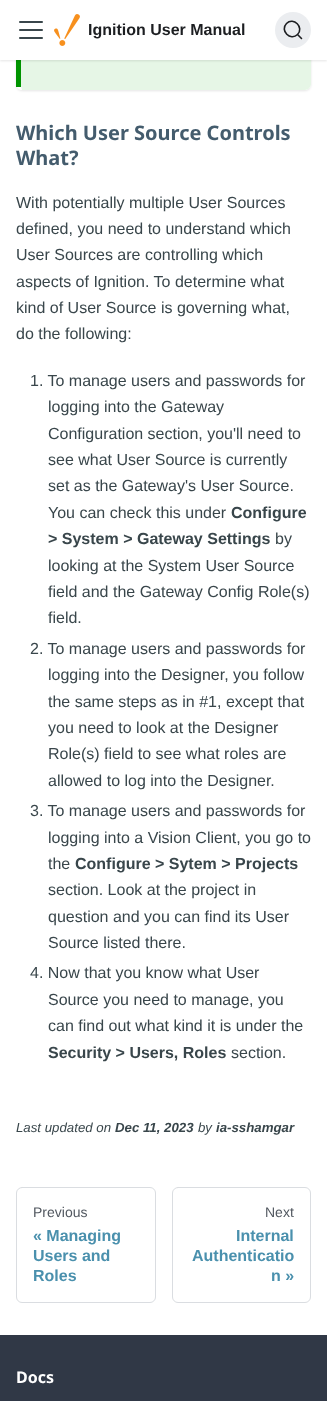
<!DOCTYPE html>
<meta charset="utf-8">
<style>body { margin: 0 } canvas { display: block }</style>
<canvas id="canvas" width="327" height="1401"></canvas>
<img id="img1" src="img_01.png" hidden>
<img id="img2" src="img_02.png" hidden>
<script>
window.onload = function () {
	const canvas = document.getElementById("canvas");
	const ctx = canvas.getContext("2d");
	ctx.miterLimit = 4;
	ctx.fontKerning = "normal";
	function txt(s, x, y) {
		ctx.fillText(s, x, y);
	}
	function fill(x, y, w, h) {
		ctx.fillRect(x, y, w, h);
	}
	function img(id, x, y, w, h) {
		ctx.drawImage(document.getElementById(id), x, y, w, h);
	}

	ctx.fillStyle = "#FFFFFF";
	fill(0, 0, 327, 1401);
	ctx.save();
	ctx.beginPath();
	ctx.moveTo(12, 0);
	ctx.lineTo(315, 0);
	ctx.lineTo(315, 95);
	ctx.lineTo(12, 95);
	ctx.closePath();
	ctx.moveTo(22, -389);
	ctx.lineTo(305, -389);
	ctx.bezierCurveTo(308.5, -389, 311, -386.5, 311, -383);
	ctx.lineTo(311, 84);
	ctx.bezierCurveTo(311, 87.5, 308.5, 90, 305, 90);
	ctx.lineTo(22, 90);
	ctx.bezierCurveTo(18.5, 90, 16, 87.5, 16, 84);
	ctx.lineTo(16, -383);
	ctx.bezierCurveTo(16, -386.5, 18.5, -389, 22, -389);
	ctx.closePath();
	ctx.clip("evenodd");
	ctx.fillStyle = "rgba(0, 0, 0, 0.1)";
	ctx.filter = "blur(1px)";
	ctx.beginPath();
	ctx.roundRect(16, -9, 295, 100, 6);
	ctx.fill();
	ctx.filter = "none";
	ctx.restore();
	ctx.fillStyle = "#E6F6E6";
	ctx.beginPath();
	ctx.moveTo(22, -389);
	ctx.lineTo(305, -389);
	ctx.bezierCurveTo(308, -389, 311, -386, 311, -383);
	ctx.lineTo(311, 84);
	ctx.bezierCurveTo(311, 87, 308, 90, 305, 90);
	ctx.lineTo(22, 90);
	ctx.bezierCurveTo(22, 90, 21, 87, 21, 84);
	ctx.lineTo(21, -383);
	ctx.bezierCurveTo(21, -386, 22, -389, 22, -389);
	ctx.closePath();
	ctx.fill();
	ctx.fillStyle = "#009400";
	fill(16, 60, 5, 27);
	ctx.fillStyle = "rgba(0, 0, 0, 0.1)";
	ctx.filter = "blur(1px)";
	ctx.beginPath();
	ctx.rect(0, 1, 327, 60);
	ctx.fill();
	ctx.filter = "none";
	ctx.fillStyle = "#FFFFFF";
	fill(0, 0, 327, 60);
	img("img1", 19, 21, 24, 18);
	img("img2", 54, 14, 26, 32);
	ctx.fillStyle = "#EBEDF0";
	ctx.beginPath();
	ctx.arc(293, 30, 18, 0, Math.PI * 2);
	ctx.fill();
	ctx.beginPath();
	ctx.moveTo(297.5, 34.5);
	ctx.lineTo(301.5, 38.5);
	ctx.lineTo(297.5, 34.5);
	ctx.bezierCurveTo(290.5, 41.5, 279.5, 30.5, 286.5, 23.5);
	ctx.bezierCurveTo(293.5, 16.5, 304.5, 27.5, 297.5, 34.5);
	ctx.closePath();
	ctx.strokeStyle = "#1C1E21";
	ctx.lineWidth = 1.6;
	ctx.lineCap = "round";
	ctx.lineJoin = "round";
	ctx.stroke();
	ctx.beginPath();
	ctx.roundRect(16.5, 1187.5, 139, 115, 5.5);
	ctx.strokeStyle = "#DADDE1";
	ctx.lineWidth = 1;
	ctx.lineJoin = "miter";
	ctx.stroke();
	ctx.beginPath();
	ctx.roundRect(172.5, 1187.5, 138, 115, 5.5);
	ctx.stroke();
	ctx.fillStyle = "#303846";
	fill(0, 1335, 327, 66);
	ctx.font = "bold 16px Liberation Sans";
	ctx.fillStyle = "#1C1E21";
	txt("Ignition User Manual", 88, 35);
	ctx.font = "bold 20px Noto Sans";
	ctx.fillStyle = "#445C6D";
	txt("Which User Source Controls", 16, 140);
	txt("What?", 16, 165);
	ctx.font = "16px Liberation Sans";
	ctx.fillStyle = "#39464B";
	txt("With potentially multiple User Sources", 16, 208);
	txt("defined, you need to understand which", 16, 234);
	txt("User Sources are controlling which", 16, 260);
	txt("aspects of Ignition. To determine what", 16, 287);
	txt("kind of User Source is governing what,", 16, 313);
	txt("do the following:", 16, 339);
	txt("1. To manage users and passwords for", 30, 386);
	txt("logging into the Gateway", 48, 412);
	txt("Configuration section, you'll need to", 48, 439);
	txt("see what User Source is currently", 48, 465);
	txt("set as the Gateway's User Source.", 48, 491);
	txt("You can check this under", 48, 518);
	ctx.font = "bold 16px Liberation Sans";
	txt("Configure", 231, 518);
	txt("> System > Gateway Settings", 48, 544);
	ctx.font = "16px Liberation Sans";
	txt("by", 275, 544);
	txt("looking at the System User Source", 48, 571);
	txt("field and the Gateway Config Role(s)", 48, 597);
	txt("field.", 48, 623);
	txt("2. To manage users and passwords for", 30, 654);
	txt("logging into the Designer, you follow", 48, 680);
	txt("the same steps as in #1, except that", 48, 707);
	txt("you need to look at the Designer", 48, 733);
	txt("Role(s) field to see what roles are", 48, 759);
	txt("allowed to log into the Designer.", 48, 786);
	txt("3. To manage users and passwords for", 30, 816);
	txt("logging into a Vision Client, you go to", 48, 843);
	txt("the", 48, 869);
	ctx.font = "bold 16px Liberation Sans";
	txt("Configure > Sytem > Projects", 75, 869);
	ctx.font = "16px Liberation Sans";
	txt("section. Look at the project in", 48, 895);
	txt("question and you can find its User", 48, 922);
	txt("Source listed there.", 48, 948);
	txt("4. Now that you know what User", 30, 978);
	txt("Source you need to manage, you", 48, 1005);
	txt("can find out what kind it is under the", 48, 1031);
	ctx.font = "bold 16px Liberation Sans";
	txt("Security > Users, Roles", 48, 1058);
	ctx.font = "16px Liberation Sans";
	txt("section.", 231, 1058);
	ctx.font = "italic 13.25px Liberation Sans";
	txt("Last updated on", 16, 1132);
	ctx.font = "italic bold 13.25px Liberation Sans";
	txt("Dec 11, 2023", 115, 1132);
	ctx.font = "italic 13.25px Liberation Sans";
	txt("by", 198, 1132);
	ctx.font = "italic bold 13.25px Liberation Sans";
	txt("ia-sshamgar", 216, 1132);
	ctx.font = "14px Liberation Sans";
	ctx.fillStyle = "#525860";
	txt("Previous", 33, 1217);
	ctx.font = "bold 16px Liberation Sans";
	ctx.fillStyle = "#4A90AD";
	txt("« Managing", 33, 1241);
	txt("Users and", 33, 1261);
	txt("Roles", 33, 1281);
	ctx.font = "14px Liberation Sans";
	ctx.fillStyle = "#525860";
	txt("Next", 265, 1217);
	ctx.font = "bold 16px Liberation Sans";
	ctx.fillStyle = "#4A90AD";
	txt("Internal", 236, 1241);
	txt("Authenticatio", 192, 1261);
	txt("n »", 271, 1281);
	ctx.font = "bold 16px Noto Sans";
	ctx.fillStyle = "#FFFFFF";
	txt("Docs", 16, 1383);
};
</script>
